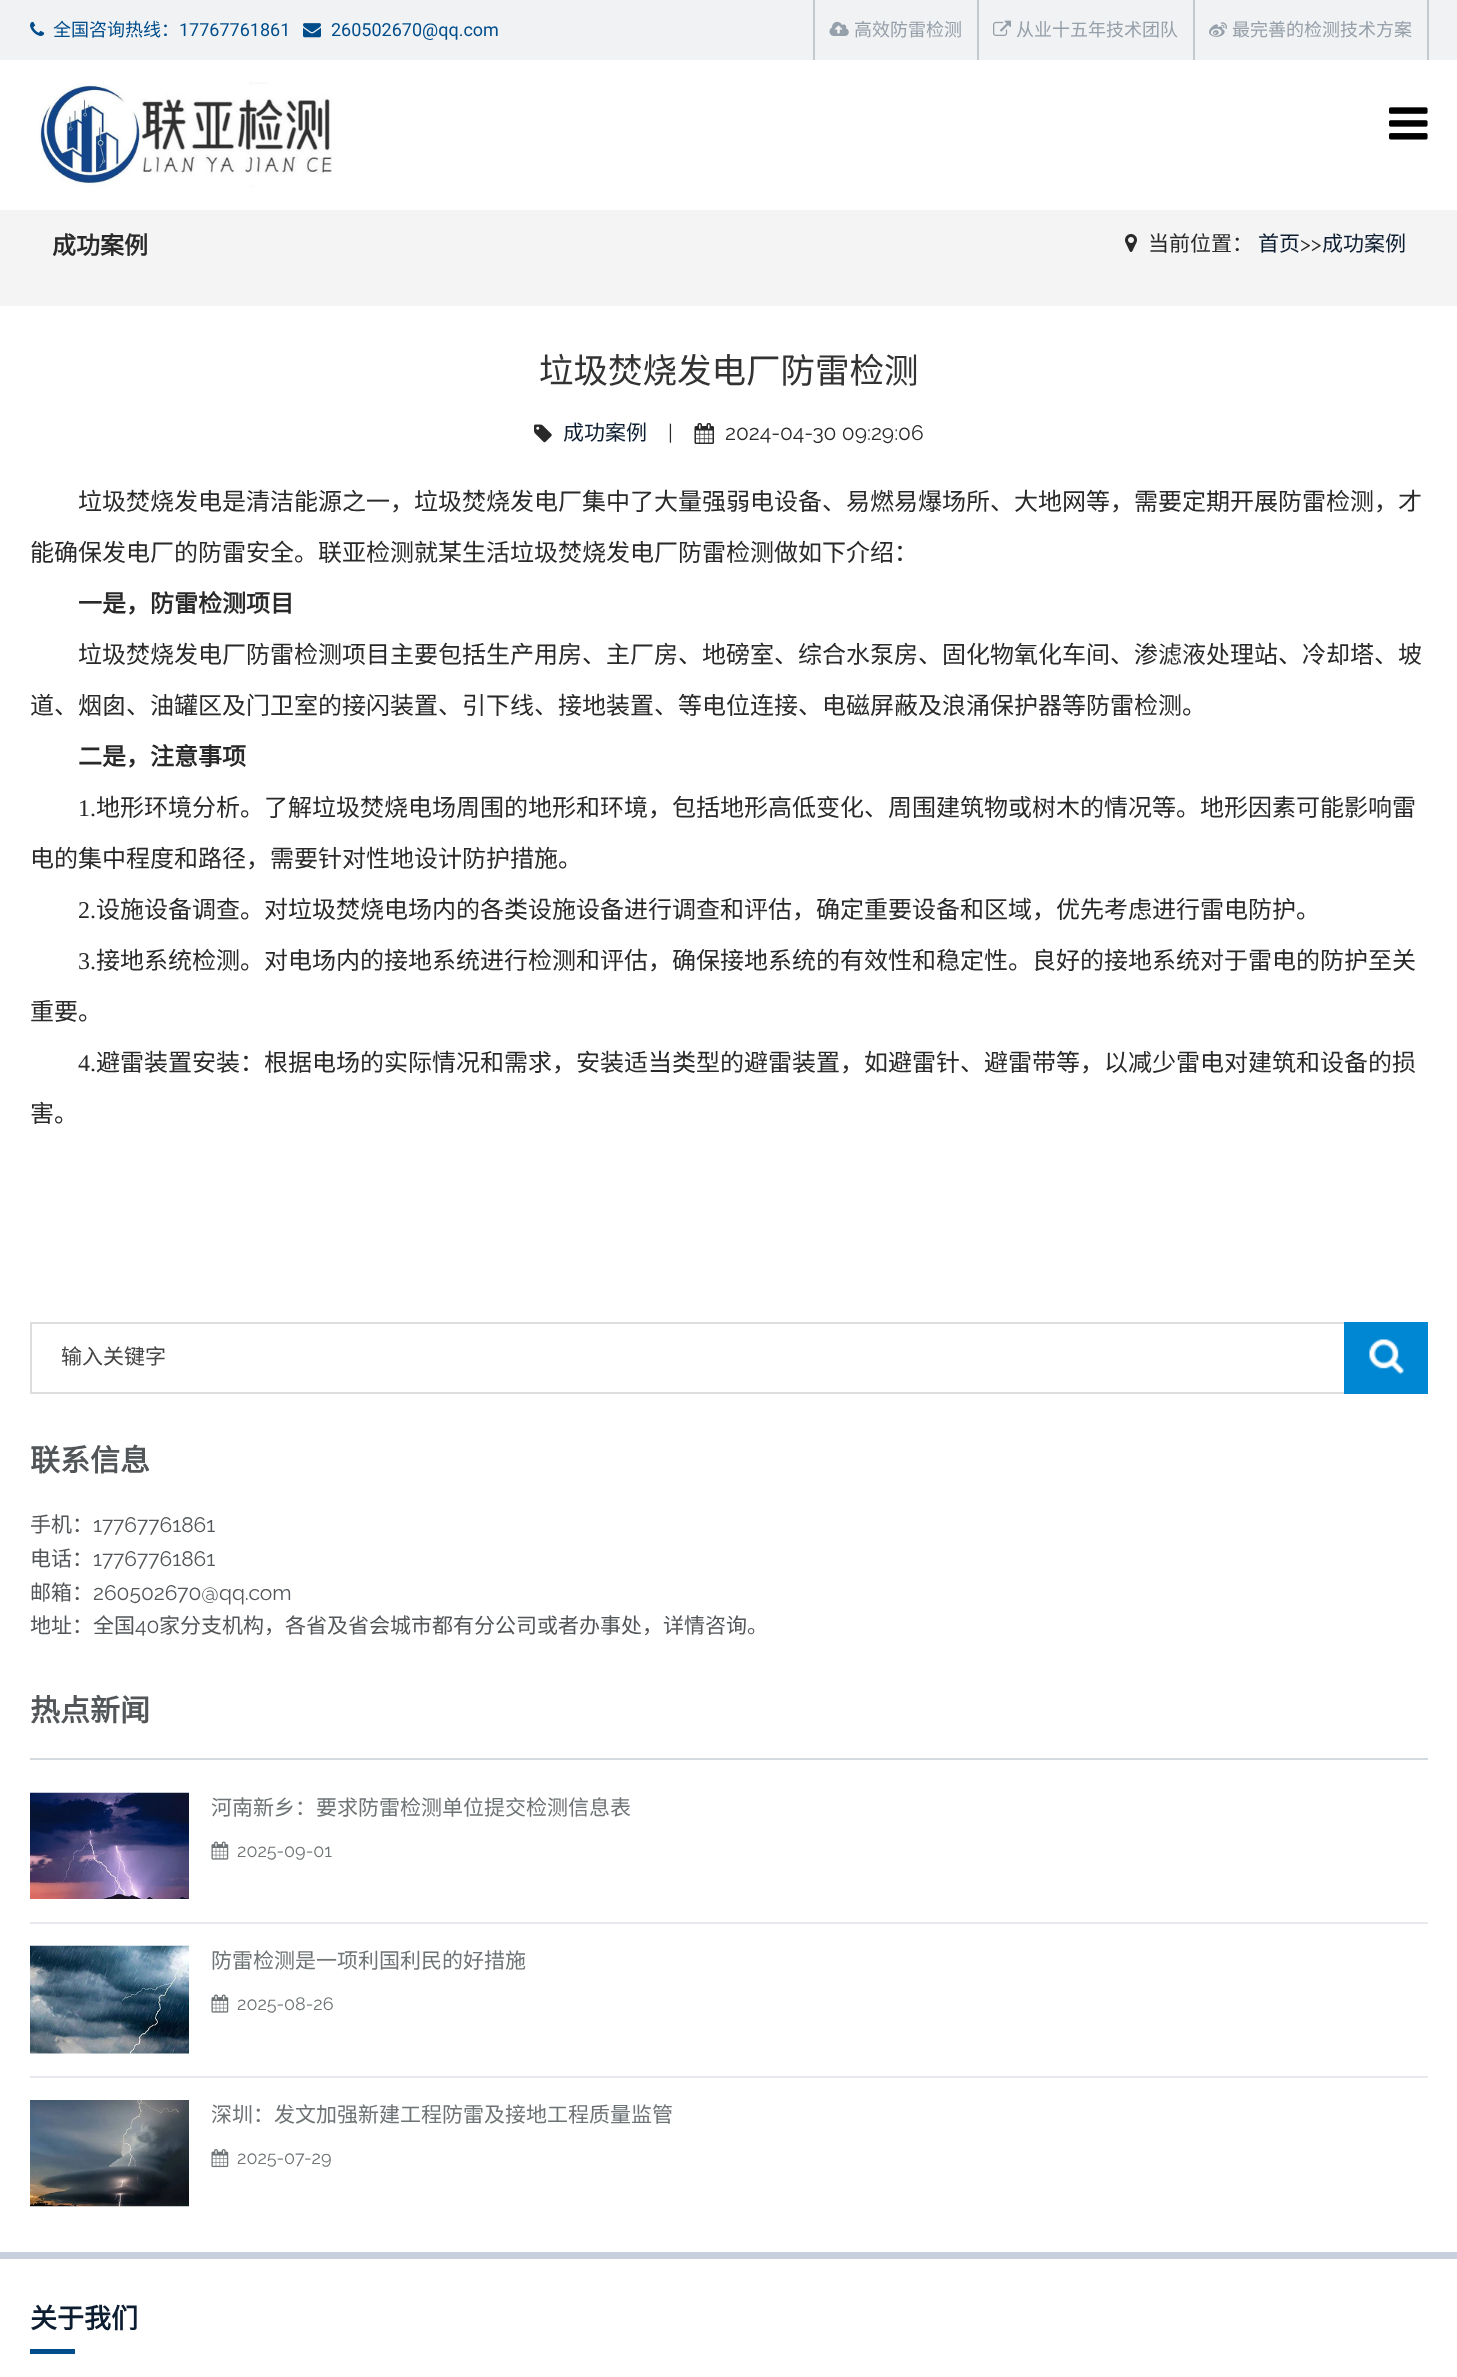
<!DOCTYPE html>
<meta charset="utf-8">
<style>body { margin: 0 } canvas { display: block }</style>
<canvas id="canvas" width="1457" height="2377"></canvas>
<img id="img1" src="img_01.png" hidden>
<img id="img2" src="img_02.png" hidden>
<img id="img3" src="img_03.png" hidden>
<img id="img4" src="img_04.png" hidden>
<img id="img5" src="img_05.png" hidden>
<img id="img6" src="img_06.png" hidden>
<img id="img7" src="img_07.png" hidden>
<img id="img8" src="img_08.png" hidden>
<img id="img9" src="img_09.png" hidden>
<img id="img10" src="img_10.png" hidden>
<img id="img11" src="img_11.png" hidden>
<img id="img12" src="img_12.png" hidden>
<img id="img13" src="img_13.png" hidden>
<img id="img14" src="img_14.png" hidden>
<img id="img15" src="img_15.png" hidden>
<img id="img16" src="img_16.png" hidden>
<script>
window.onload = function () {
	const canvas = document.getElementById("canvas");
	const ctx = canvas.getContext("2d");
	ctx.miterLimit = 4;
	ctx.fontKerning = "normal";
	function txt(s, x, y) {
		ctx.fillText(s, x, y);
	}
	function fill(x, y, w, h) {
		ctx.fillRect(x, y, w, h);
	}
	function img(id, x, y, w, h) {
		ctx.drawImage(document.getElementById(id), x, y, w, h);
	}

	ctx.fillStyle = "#F4F4F4";
	fill(0, 0, 1457, 2377);
	ctx.fillStyle = "#FFFFFF";
	fill(0, 60, 1457, 150);
	ctx.fillStyle = "#F1F2F3";
	fill(0, 0, 1457, 60);
	img("img1", 30, 21, 15, 15);
	img("img2", 303, 23, 18, 15);
	ctx.fillStyle = "#C3C9CE";
	fill(1427, 0, 2, 60);
	fill(813, 0, 2, 60);
	img("img3", 829, 21, 20, 15);
	fill(977, 0, 2, 60);
	img("img4", 993, 20, 18, 16);
	fill(1193, 0, 2, 60);
	img("img5", 1209, 22, 18, 15);
	img("img6", 38, 82, 294, 106);
	img("img7", 1389, 107, 39, 33);
	img("img8", 1125, 234, 12, 18);
	ctx.fillStyle = "#FFFFFF";
	fill(0, 306, 1457, 1946);
	img("img9", 534, 424, 18, 19);
	img("img10", 694, 423, 20, 21);
	ctx.fillStyle = "#DDDDDD";
	fill(30, 1322, 1314, 2);
	fill(30, 1392, 1314, 2);
	fill(30, 1322, 2, 72);
	ctx.fillStyle = "#0087D3";
	fill(1344, 1322, 84, 72);
	img("img11", 1369, 1339, 35, 35);
	ctx.fillStyle = "#D3DAE0";
	fill(30, 1758, 1398, 2);
	ctx.fillStyle = "#E8E9EF";
	fill(30, 1922, 1398, 2);
	img("img12", 30, 1792, 159, 107);
	img("img13", 211, 1841, 18, 19);
	fill(30, 2076, 1398, 2);
	img("img14", 30, 1945, 159, 109);
	img("img13", 211, 1994, 18, 19);
	img("img15", 30, 2100, 159, 107);
	img("img16", 211, 2149, 18, 19);
	ctx.fillStyle = "#FFFFFF";
	fill(0, 2259, 1457, 118);
	ctx.fillStyle = "#C7D0DC";
	fill(0, 2252, 1457, 7);
	ctx.fillStyle = "#004D8C";
	fill(30, 2349, 45, 5);
	ctx.font = "18px Noto Sans CJK SC";
	txt("全国咨询热线：", 53, 36);
	ctx.font = "18px Roboto";
	txt("17767761861", 179, 36);
	txt("260502670@qq.com", 331, 36);
	ctx.font = "18px Noto Sans CJK SC";
	ctx.fillStyle = "#96A0AA";
	txt("高效防雷检测", 854, 36);
	txt("从业十五年技术团队", 1016, 36);
	txt("最完善的检测技术方案", 1232, 36);
	ctx.font = "bold 24px Noto Sans CJK SC";
	ctx.fillStyle = "#292929";
	txt("成功案例", 52, 254);
	ctx.font = "21px Noto Sans CJK SC";
	txt("当前位置：", 1148, 251);
	ctx.fillStyle = "#0D1D31";
	txt("首页", 1258, 251);
	ctx.font = "21px Raleway";
	ctx.fillStyle = "#292929";
	txt(">>", 1300, 251);
	ctx.font = "21px Noto Sans CJK SC";
	ctx.fillStyle = "#0D1D31";
	txt("成功案例", 1322, 251);
	ctx.font = "34.5px Noto Sans CJK SC";
	ctx.fillStyle = "#333333";
	txt("垃圾焚烧发电厂防雷检测", 539, 383);
	ctx.font = "21px Noto Sans CJK SC";
	ctx.fillStyle = "#0D1D31";
	txt("成功案例", 563, 440);
	ctx.font = "21px Raleway";
	ctx.fillStyle = "#292929";
	txt("|", 668, 440);
	txt("2024-04-30 09:29:06", 725, 440);
	ctx.font = "24px Noto Sans CJK SC";
	txt("垃圾焚烧发电是清洁能源之一，垃圾焚烧发电厂集中了大量强弱电设备、易燃易爆场所、大地网等，需要定期开展防雷检测，才", 78, 510);
	txt("能确保发电厂的防雷安全。联亚检测就某生活垃圾焚烧发电厂防雷检测做如下介绍：", 30, 561);
	ctx.font = "bold 24px Noto Sans CJK SC";
	txt("一是，防雷检测项目", 78, 612);
	ctx.font = "24px Noto Sans CJK SC";
	txt("垃圾焚烧发电厂防雷检测项目主要包括生产用房、主厂房、地磅室、综合水泵房、固化物氧化车间、渗滤液处理站、冷却塔、坡", 78, 663);
	txt("道、烟囱、油罐区及门卫室的接闪装置、引下线、接地装置、等电位连接、电磁屏蔽及浪涌保护器等防雷检测。", 30, 714);
	ctx.font = "bold 24px Noto Sans CJK SC";
	txt("二是，注意事项", 78, 765);
	ctx.font = "24px Liberation Serif";
	txt("1.", 78, 816);
	ctx.font = "24px Noto Sans CJK SC";
	txt("地形环境分析。了解垃圾焚烧电场周围的地形和环境，包括地形高低变化、周围建筑物或树木的情况等。地形因素可能影响雷", 96, 816);
	txt("电的集中程度和路径，需要针对性地设计防护措施。", 30, 867);
	ctx.font = "24px Liberation Serif";
	txt("2.", 78, 918);
	ctx.font = "24px Noto Sans CJK SC";
	txt("设施设备调查。对垃圾焚烧电场内的各类设施设备进行调查和评估，确定重要设备和区域，优先考虑进行雷电防护。", 96, 918);
	ctx.font = "24px Liberation Serif";
	txt("3.", 78, 969);
	ctx.font = "24px Noto Sans CJK SC";
	txt("接地系统检测。对电场内的接地系统进行检测和评估，确保接地系统的有效性和稳定性。良好的接地系统对于雷电的防护至关", 96, 969);
	txt("重要。", 30, 1020);
	ctx.font = "24px Liberation Serif";
	txt("4.", 78, 1071);
	ctx.font = "24px Noto Sans CJK SC";
	txt("避雷装置安装：根据电场的实际情况和需求，安装适当类型的避雷装置，如避雷针、避雷带等，以减少雷电对建筑和设备的损", 96, 1071);
	txt("害。", 30, 1122);
	ctx.font = "21px Noto Sans CJK SC";
	ctx.fillStyle = "#444444";
	txt("输入关键字", 61, 1364);
	ctx.font = "bold 30px Noto Sans CJK SC";
	ctx.fillStyle = "#525659";
	txt("联系信息", 30, 1471);
	ctx.font = "21px Noto Sans CJK SC";
	txt("手机：", 30, 1532);
	ctx.font = "21px Raleway";
	txt("17767761861", 93, 1532);
	ctx.font = "21px Noto Sans CJK SC";
	txt("电话：", 30, 1566);
	ctx.font = "21px Raleway";
	txt("17767761861", 93, 1566);
	ctx.font = "21px Noto Sans CJK SC";
	txt("邮箱：", 30, 1600);
	ctx.font = "21px Raleway";
	txt("260502670@qq.com", 93, 1600);
	ctx.font = "21px Noto Sans CJK SC";
	txt("地址：全国", 30, 1633);
	ctx.font = "21px Raleway";
	txt("40", 135, 1633);
	ctx.font = "21px Noto Sans CJK SC";
	txt("家分支机构，各省及省会城市都有分公司或者办事处，详情咨询。", 159, 1633);
	ctx.font = "bold 30px Noto Sans CJK SC";
	txt("热点新闻", 30, 1721);
	ctx.font = "21px Noto Sans CJK SC";
	ctx.fillStyle = "#6E7375";
	txt("河南新乡：要求防雷检测单位提交检测信息表", 211, 1815);
	ctx.font = "18px Raleway";
	txt("2025-09-01", 237, 1857);
	ctx.font = "21px Noto Sans CJK SC";
	txt("防雷检测是一项利国利民的好措施", 211, 1968);
	ctx.font = "18px Raleway";
	txt("2025-08-26", 237, 2010);
	ctx.font = "21px Noto Sans CJK SC";
	txt("深圳：发文加强新建工程防雷及接地工程质量监管", 211, 2122);
	ctx.font = "18px Raleway";
	txt("2025-07-29", 237, 2164);
	ctx.font = "bold 27px Noto Sans CJK SC";
	ctx.fillStyle = "#0D1D31";
	txt("关于我们", 30, 2328);
};
</script>
